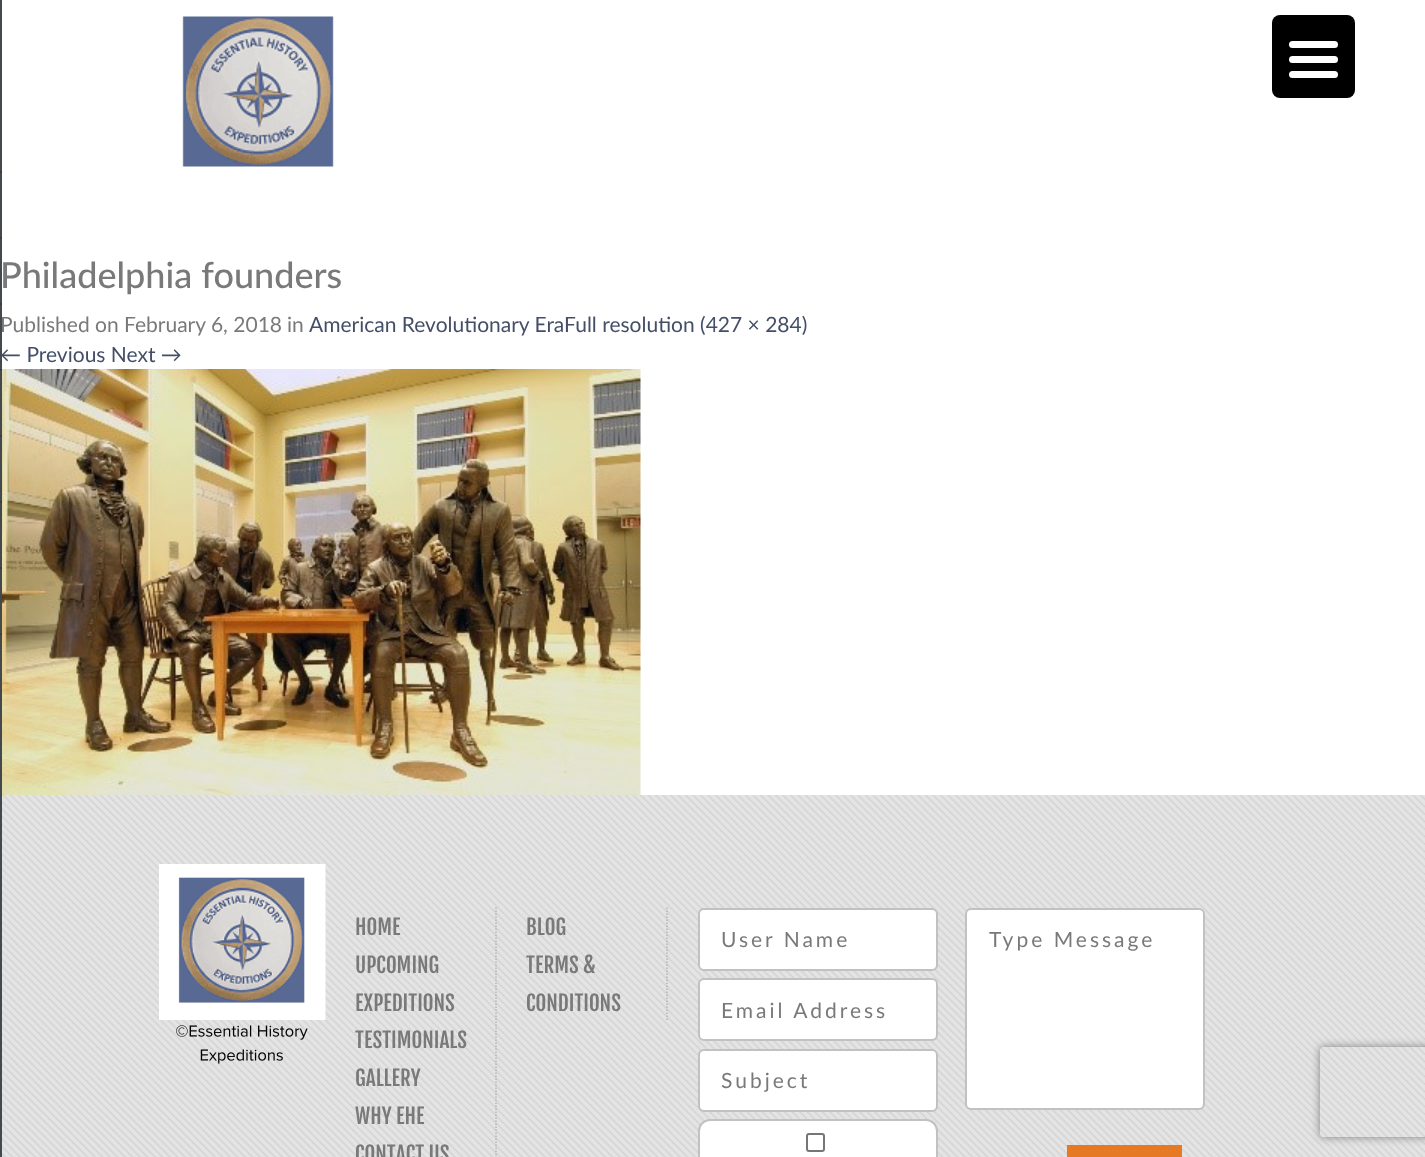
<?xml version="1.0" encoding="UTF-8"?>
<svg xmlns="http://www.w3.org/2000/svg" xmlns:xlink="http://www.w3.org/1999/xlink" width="1425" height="1157">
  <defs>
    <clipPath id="clip1"><path d="M 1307 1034 h 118 v 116 h -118 z m 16 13 h 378 c 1.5 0 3 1.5 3 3 v 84 c 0 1.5 -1.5 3 -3 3 h -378 c -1.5 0 -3 -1.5 -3 -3 v -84 c 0 -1.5 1.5 -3 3 -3 z" clip-rule="evenodd" /></clipPath>
  </defs>
  <rect width="100%" height="100%" fill="#ffffff" />
  <image x="182" y="16" width="152" height="151" xlink:href="image1.png" />
  <rect x="1272" y="15" width="83" height="83" rx="8" fill="#000000" />
  <rect x="1289" y="56" width="49" height="7" rx="3.5" fill="#ffffff" />
  <rect x="1289" y="41" width="49" height="7" rx="3.5" fill="#ffffff" />
  <rect x="1289" y="71" width="49" height="7" rx="3.5" fill="#ffffff" />
  <image x="2" y="369" width="639" height="426" xlink:href="image2.png" />
  <image x="2" y="795" width="1423" height="362" xlink:href="image3.png" />
  <image x="159" y="864" width="167" height="156" xlink:href="image4.png" />
  <image x="176" y="1025" width="132" height="15" xlink:href="image5.png" />
  <image x="200" y="1049" width="83" height="15" xlink:href="image6.png" />
  <path d="M 496 907.5 v 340.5" fill="none" stroke="#b5b5b5" stroke-width="1.5" stroke-dasharray="1.5 1.5" />
  <path d="M 667 907.5 v 114" fill="none" stroke="#b5b5b5" stroke-width="1.5" stroke-dasharray="1.5 1.5" />
  <rect x="699" y="909" width="238" height="61" rx="5" fill="#ffffff" stroke="#c1c1c1" stroke-width="2" />
  <rect x="699" y="979" width="238" height="61" rx="5" fill="#ffffff" stroke="#c1c1c1" stroke-width="2" />
  <rect x="699" y="1050" width="238" height="61" rx="5" fill="#ffffff" stroke="#c1c1c1" stroke-width="2" />
  <rect x="699" y="1120" width="238" height="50" rx="11" fill="#ffffff" stroke="#c1c1c1" stroke-width="2" />
  <rect x="807" y="1134" width="17" height="17" rx="2" fill="none" stroke="#767676" stroke-width="2" />
  <rect x="966" y="909" width="238" height="200" rx="5" fill="#ffffff" stroke="#c1c1c1" stroke-width="2" />
  <rect x="1067" y="1145" width="115" height="12" fill="#e57924" />
  <g clip-path="url(#clip1)">
    <rect x="1320" y="1047" width="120" height="90" rx="3" fill="#808080" filter="blur(4px)" />
  </g>
  <text x="0" y="288" style="font-family: Lato; font-size: 36px; font-weight: 500; fill: #797979">Philadelphia founders</text>
  <text x="0" y="332" style="font-family: Lato; font-size: 21px; fill: #797979">Published on February 6, 2018</text>
  <text x="287" y="332" style="font-family: Lato; font-size: 21px; fill: #797979">in</text>
  <text x="309" y="332" style="font-family: Lato; font-size: 21px; fill: #444e67">American Revolutionary EraFull resolution (427 × 284)</text>
  <text x="0" y="362" style="font-family: Lato; font-size: 21px; fill: #444e67">← Previous Next →</text>
  <rect width="2" height="1157" fill="#43494c" />
  <rect y="633" width="2" height="2" fill="#3c3c3c" />
  <rect y="567" width="2" height="2" fill="#3c3c3c" />
  <rect y="501" width="2" height="2" fill="#3c3c3c" />
  <rect y="435" width="2" height="2" fill="#3c3c3c" />
  <rect y="369" width="2" height="2" fill="#3c3c3c" />
  <rect y="303" width="2" height="2" fill="#3c3c3c" />
  <rect y="237" width="2" height="2" fill="#3c3c3c" />
  <rect y="171" width="2" height="2" fill="#3c3c3c" />
  <text x="355" y="935" style="font-family: Fjalla One; font-size: 21px; fill: #797979">HOME</text>
  <text x="355" y="973" style="font-family: Fjalla One; font-size: 21px; fill: #797979">UPCOMING</text>
  <text x="355" y="1011" style="font-family: Fjalla One; font-size: 21px; fill: #797979">EXPEDITIONS</text>
  <text x="355" y="1048" style="font-family: Fjalla One; font-size: 21px; fill: #797979">TESTIMONIALS</text>
  <text x="355" y="1086" style="font-family: Fjalla One; font-size: 21px; fill: #797979">GALLERY</text>
  <text x="355" y="1124" style="font-family: Fjalla One; font-size: 21px; fill: #797979">WHY EHE</text>
  <text x="355" y="1162" style="font-family: Fjalla One; font-size: 21px; fill: #797979">CONTACT US</text>
  <text x="526" y="935" style="font-family: Fjalla One; font-size: 21px; fill: #797979">BLOG</text>
  <text x="526" y="973" style="font-family: Fjalla One; font-size: 21px; fill: #797979">TERMS &amp;</text>
  <text x="526" y="1011" style="font-family: Fjalla One; font-size: 21px; fill: #797979">CONDITIONS</text>
  <text x="721" y="947" style="font-family: Lato; font-size: 21px; letter-spacing: 3px; fill: #797979">User Name</text>
  <text x="721" y="1018" style="font-family: Lato; font-size: 21px; letter-spacing: 3px; fill: #797979">Email Address</text>
  <text x="721" y="1088" style="font-family: Lato; font-size: 21px; letter-spacing: 3px; fill: #797979">Subject</text>
  <text x="989" y="947" style="font-family: Lato; font-size: 21px; letter-spacing: 3px; fill: #797979">Type Message</text>
</svg>
